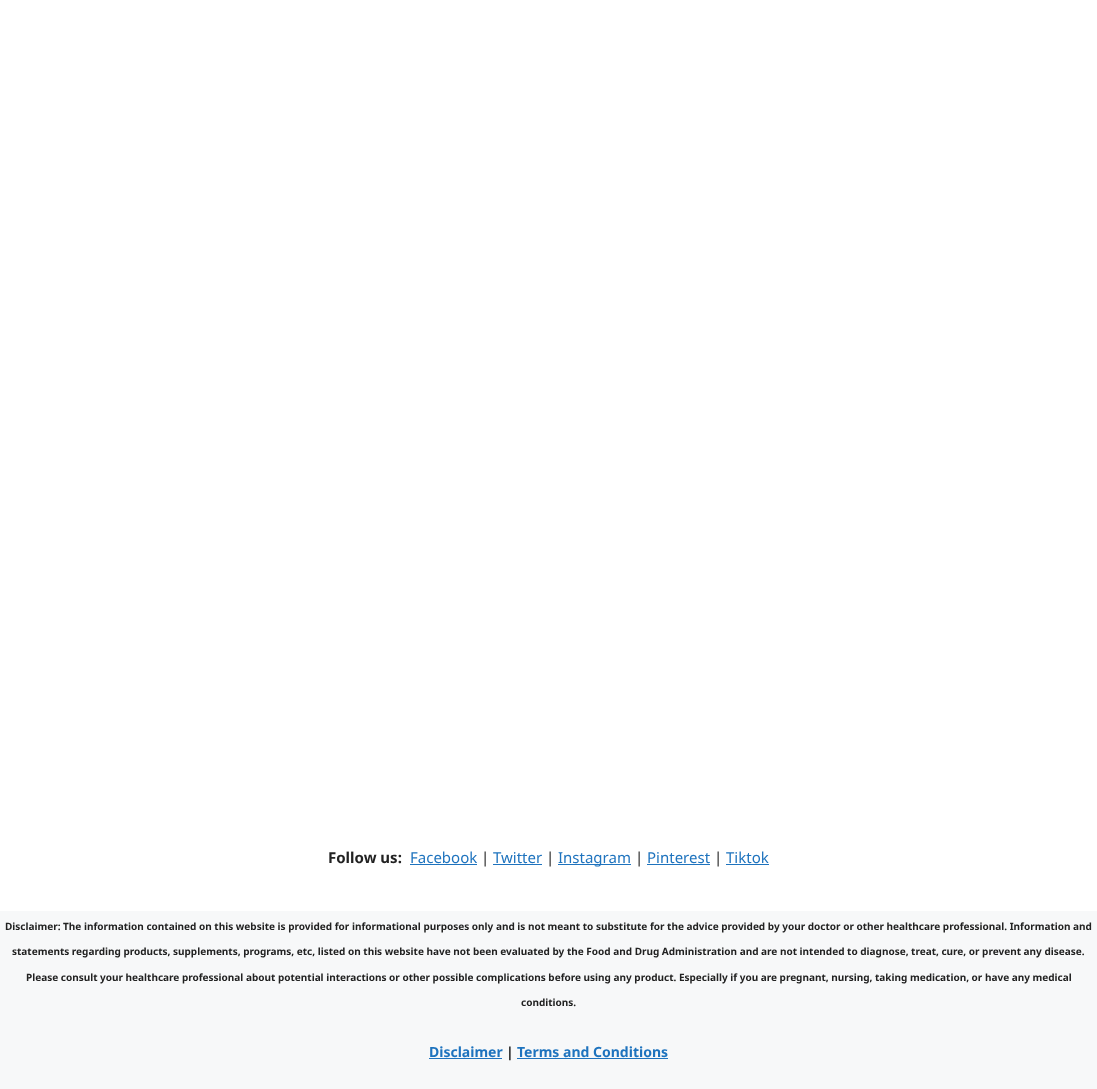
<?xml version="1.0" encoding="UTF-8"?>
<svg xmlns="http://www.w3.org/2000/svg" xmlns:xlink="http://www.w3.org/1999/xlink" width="1097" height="1089">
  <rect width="100%" height="100%" fill="#f7f8f9" />
  <rect width="1097" height="911" fill="#ffffff" />
  <rect x="410" y="864" width="67" height="1" fill="#1e73be" />
  <rect x="493" y="864" width="49" height="1" fill="#1e73be" />
  <rect x="558" y="864" width="73" height="1" fill="#1e73be" />
  <rect x="647" y="864" width="63" height="1" fill="#1e73be" />
  <rect x="726" y="864" width="43" height="1" fill="#1e73be" />
  <rect x="429" y="1058" width="73" height="1" fill="#1e73be" />
  <rect x="517" y="1058" width="151" height="1" fill="#1e73be" />
  <text x="328" y="863" style="font-family: Noto Sans; font-size: 15px; font-weight: bold; fill: #222222">Follow us:</text>
  <text x="410" y="863" style="font-family: Noto Sans; font-size: 15px; fill: #1e73be">Facebook</text>
  <text x="481" y="863" style="font-family: Noto Sans; font-size: 15px; fill: #222222">|</text>
  <text x="493" y="863" style="font-family: Noto Sans; font-size: 15px; fill: #1e73be">Twitter</text>
  <text x="546" y="863" style="font-family: Noto Sans; font-size: 15px; fill: #222222">|</text>
  <text x="558" y="863" style="font-family: Noto Sans; font-size: 15px; fill: #1e73be">Instagram</text>
  <text x="635" y="863" style="font-family: Noto Sans; font-size: 15px; fill: #222222">|</text>
  <text x="647" y="863" style="font-family: Noto Sans; font-size: 15px; fill: #1e73be">Pinterest</text>
  <text x="714" y="863" style="font-family: Noto Sans; font-size: 15px; fill: #222222">|</text>
  <text x="726" y="863" style="font-family: Noto Sans; font-size: 15px; fill: #1e73be">Tiktok</text>
  <text x="5" y="930" style="font-family: Noto Sans; font-size: 10px; font-weight: bold; fill: #222222">Disclaimer: The information contained on this website is provided for informational purposes only and is not meant to substitute for the advice provided by your doctor or other healthcare professional. Information and</text>
  <text x="12" y="955" style="font-family: Noto Sans; font-size: 10px; font-weight: bold; fill: #222222">statements regarding products, supplements, programs, etc, listed on this website have not been evaluated by the Food and Drug Administration and are not intended to diagnose, treat, cure, or prevent any disease.</text>
  <text x="26" y="981" style="font-family: Noto Sans; font-size: 10px; font-weight: bold; fill: #222222">Please consult your healthcare professional about potential interactions or other possible complications before using any product. Especially if you are pregnant, nursing, taking medication, or have any medical</text>
  <text x="521" y="1006" style="font-family: Noto Sans; font-size: 10px; font-weight: bold; fill: #222222">conditions.</text>
  <text x="429" y="1057" style="font-family: Noto Sans; font-size: 14px; font-weight: bold; fill: #1e73be">Disclaimer</text>
  <text x="506" y="1057" style="font-family: Noto Sans; font-size: 14px; font-weight: bold; fill: #222222">|</text>
  <text x="517" y="1057" style="font-family: Noto Sans; font-size: 14px; font-weight: bold; fill: #1e73be">Terms and Conditions</text>
</svg>
